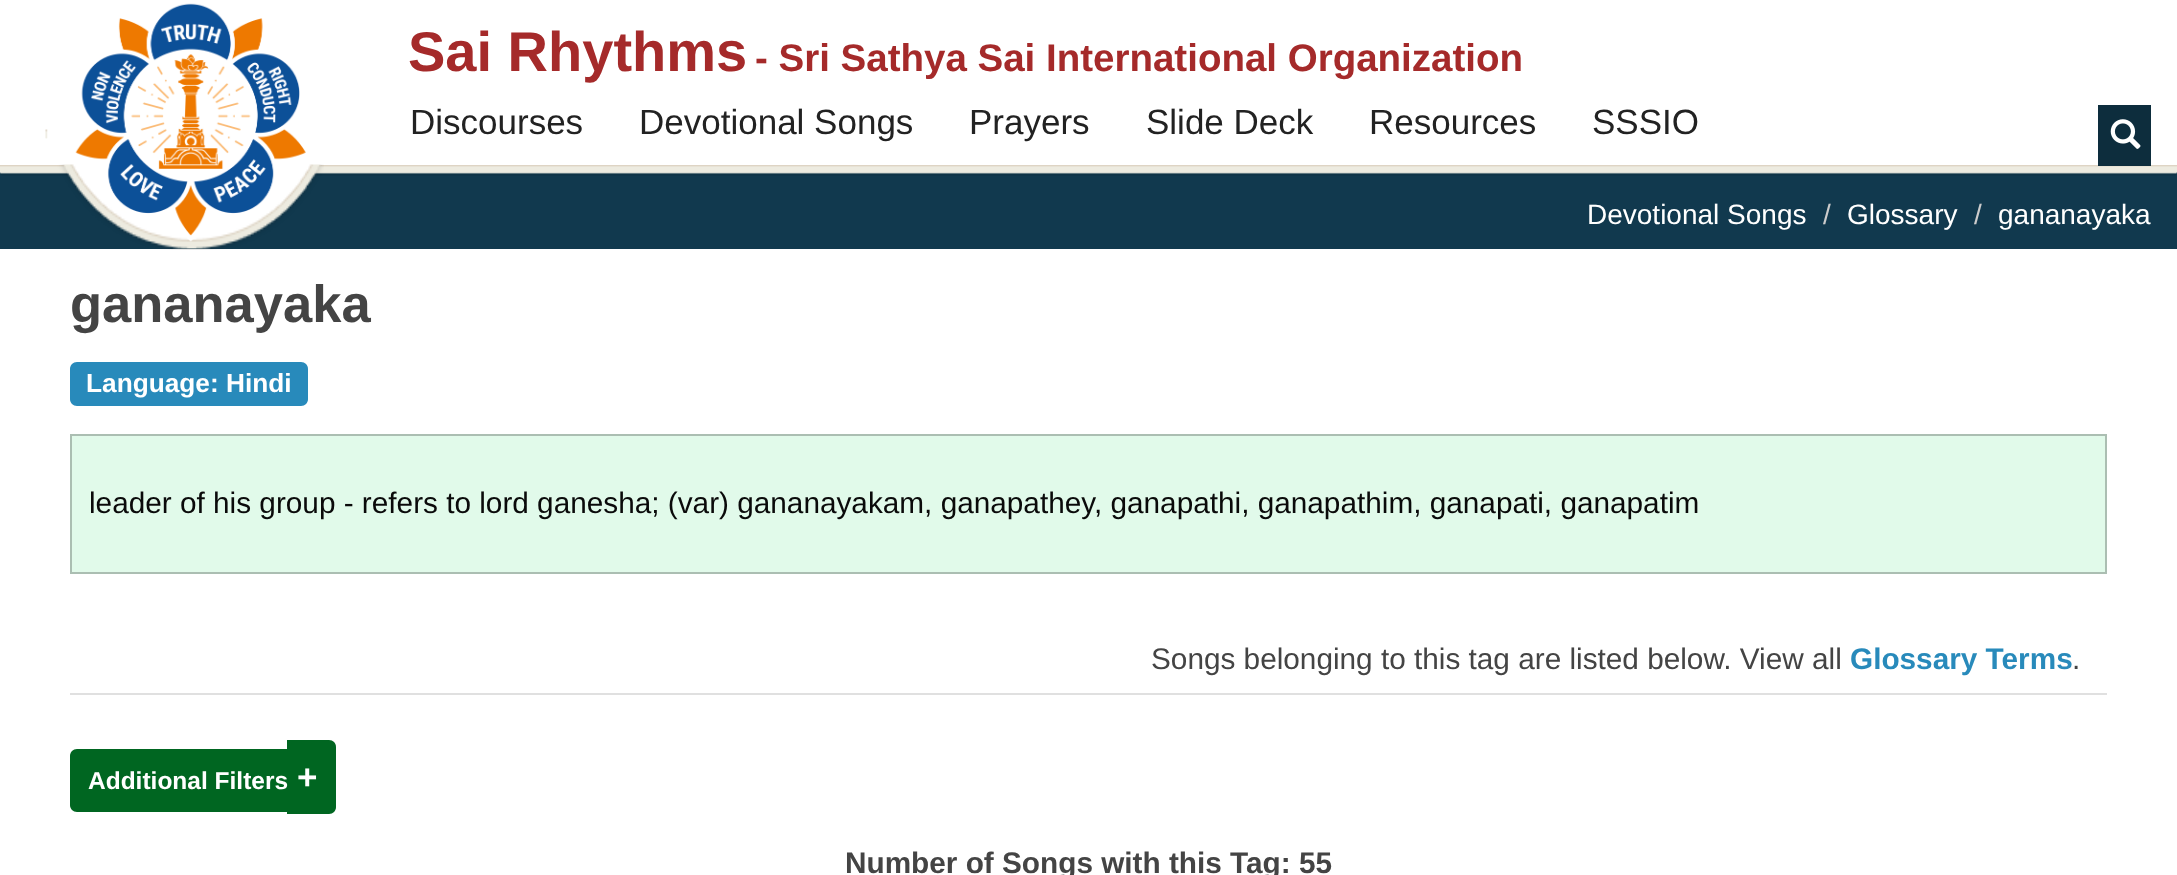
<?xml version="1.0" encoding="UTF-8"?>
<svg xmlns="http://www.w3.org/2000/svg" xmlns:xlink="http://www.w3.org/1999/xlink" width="2177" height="875">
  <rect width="100%" height="100%" fill="#ffffff" />
  <rect y="172" width="2177" height="77" fill="#11394e" />
  <image x="0" y="165" width="2177" height="11" xlink:href="image1.png" />
  <image x="45" y="129" width="279" height="121" xlink:href="image3.png" />
  <image x="75" y="3" width="231" height="239" xlink:href="image2.png" />
  <rect x="2098" y="105" width="53" height="61" fill="#0d2d3d" />
  <image x="2110" y="119" width="31" height="30" xlink:href="image4.png" />
  <path d="M 77 362 h 149 v 44 h -149 c -4 0 -7 -3 -7 -7 v -30 c 0 -4 3 -7 7 -7 z" fill="#288abb" />
  <path d="M 226 362 h 75 c 4 0 7 3 7 7 v 30 c 0 4 -3 7 -7 7 h -75 z" fill="#288abb" />
  <rect x="71" y="435" width="2035" height="138" fill="#e1faea" stroke="#abbeb2" stroke-width="2" />
  <rect x="70" y="693" width="2037" height="2" fill="#e0e0e0" />
  <path d="M 77 749 h 210 v 63 h -210 c -4 0 -7 -3 -7 -7 v -49 c 0 -4 3 -7 7 -7 z" fill="#006621" />
  <path d="M 287 740 h 42 c 4 0 7 3 7 7 v 60 c 0 4 -3 7 -7 7 h -42 z" fill="#006621" />
  <text x="408" y="71" style="font-family: Liberation Sans; font-size: 56px; font-weight: bold; fill: #a52a2a">Sai Rhythms</text>
  <text x="755" y="71" style="font-family: Liberation Sans; font-size: 38.5px; font-weight: bold; fill: #a52a2a">- Sri Sathya Sai International Organization</text>
  <text x="410" y="134" style="font-family: Liberation Sans; font-size: 35px; fill: #222222">Discourses</text>
  <text x="639" y="134" style="font-family: Liberation Sans; font-size: 35px; fill: #222222">Devotional Songs</text>
  <text x="969" y="134" style="font-family: Liberation Sans; font-size: 35px; fill: #222222">Prayers</text>
  <text x="1146" y="134" style="font-family: Liberation Sans; font-size: 35px; fill: #222222">Slide Deck</text>
  <text x="1369" y="134" style="font-family: Liberation Sans; font-size: 35px; fill: #222222">Resources</text>
  <text x="1592" y="134" style="font-family: Liberation Sans; font-size: 35px; fill: #222222">SSSIO</text>
  <text x="1587" y="224" style="font-family: Liberation Sans; font-size: 28px; fill: #ffffff">Devotional Songs</text>
  <text x="1823" y="224" style="font-family: Liberation Sans; font-size: 28px; fill: #cccccc">/</text>
  <text x="1847" y="224" style="font-family: Liberation Sans; font-size: 28px; fill: #ffffff">Glossary</text>
  <text x="1974" y="224" style="font-family: Liberation Sans; font-size: 28px; fill: #cccccc">/</text>
  <text x="1998" y="224" style="font-family: Liberation Sans; font-size: 28px; fill: #ffffff">gananayaka</text>
  <text x="70" y="322" style="font-family: Liberation Sans; font-size: 52.5px; font-weight: bold; fill: #444444">gananayaka</text>
  <text x="86" y="392" style="font-family: Liberation Sans; font-size: 26.25px; font-weight: bold; fill: #ffffff">Language: Hindi</text>
  <text x="89" y="513" style="font-family: Liberation Sans; font-size: 29.75px; fill: #0a0a0a">leader of his group - refers to lord ganesha; (var) gananayakam, ganapathey, ganapathi, ganapathim, ganapati, ganapatim</text>
  <text x="1151" y="669" style="font-family: Liberation Sans; font-size: 29.75px; fill: #444444">Songs belonging to this tag are listed below. View all</text>
  <text x="1850" y="669" style="font-family: Liberation Sans; font-size: 29.75px; font-weight: bold; fill: #288abb">Glossary Terms</text>
  <text x="2072" y="669" style="font-family: Liberation Sans; font-size: 29.75px; fill: #444444">.</text>
  <text x="88" y="789" style="font-family: Liberation Sans; font-size: 24.5px; font-weight: bold; fill: #ffffff">Additional Filters</text>
  <text x="297" y="789" style="font-family: Liberation Sans; font-size: 35px; font-weight: bold; fill: #ffffff">+</text>
  <text x="845" y="873" style="font-family: Liberation Sans; font-size: 29.75px; font-weight: bold; fill: #444444">Number of Songs with this Tag: 55</text>
</svg>
